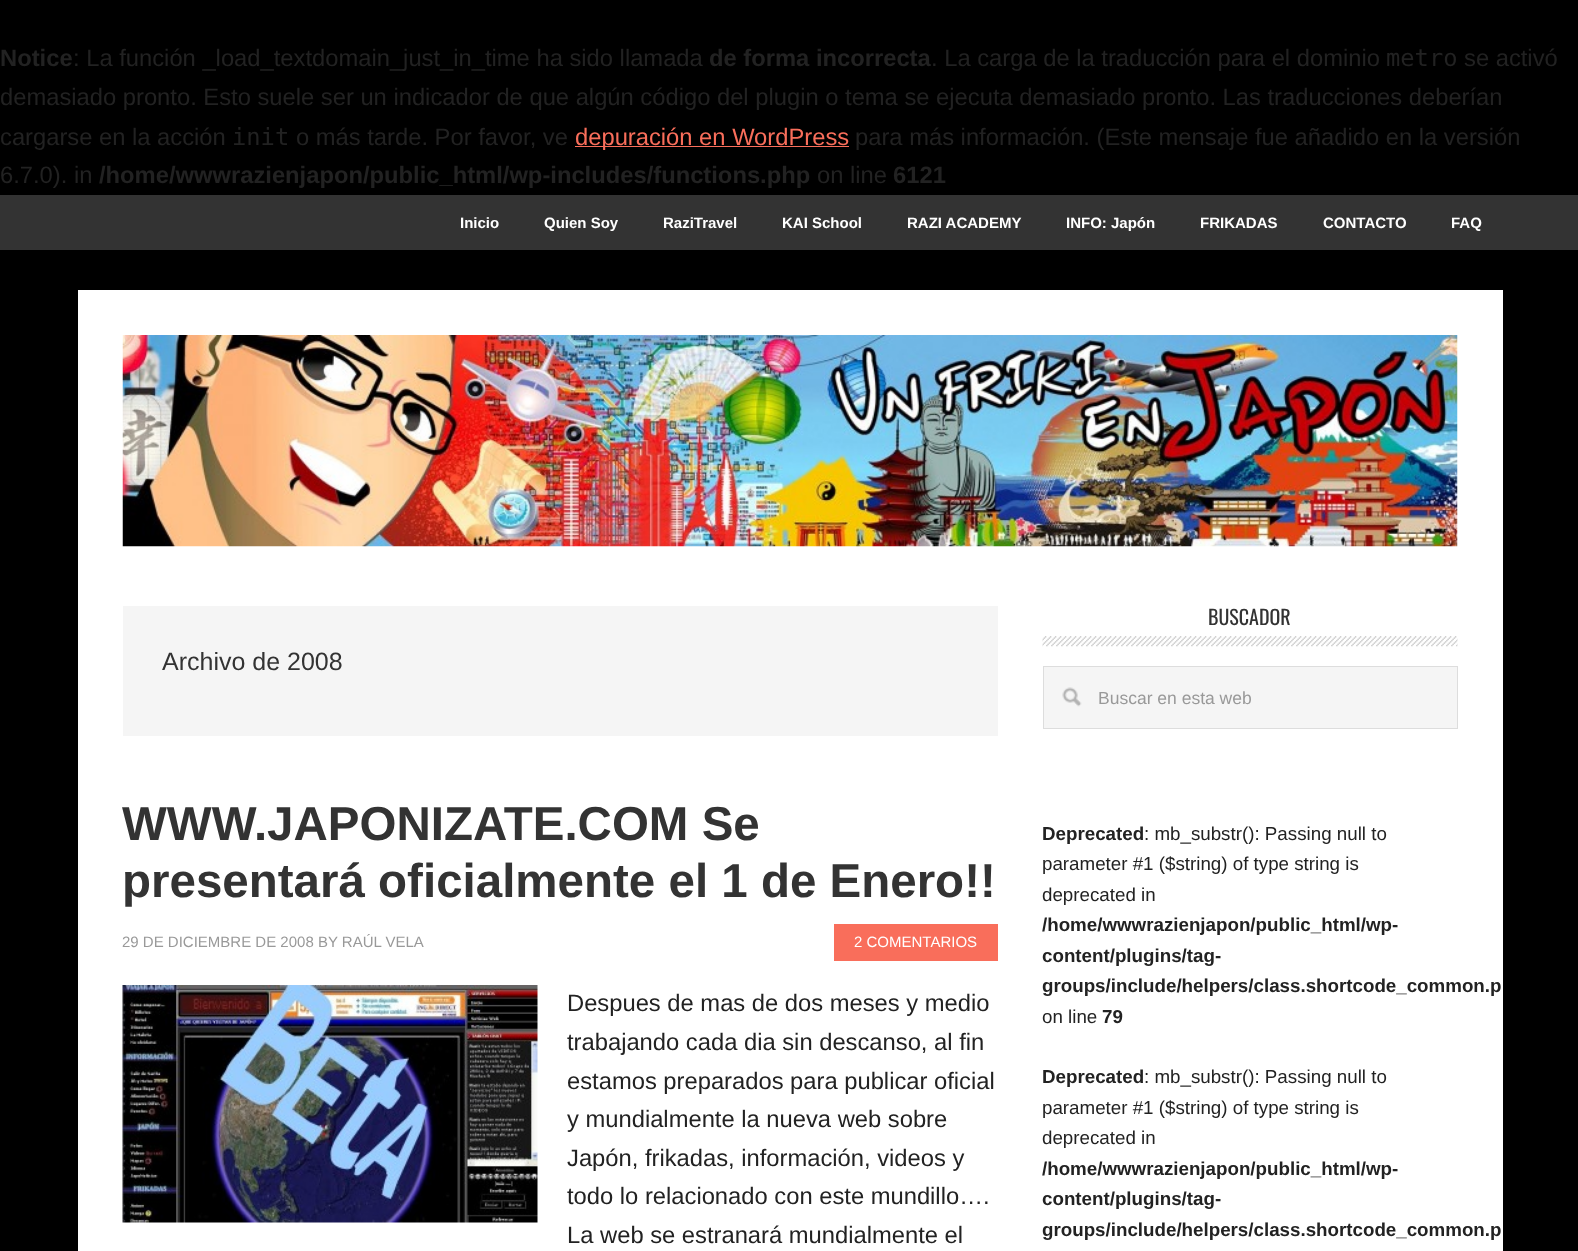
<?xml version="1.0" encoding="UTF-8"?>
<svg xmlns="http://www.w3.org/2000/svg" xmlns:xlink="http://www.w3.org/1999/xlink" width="1578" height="1251">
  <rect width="100%" height="100%" fill="#000000" />
  <rect x="575" y="146" width="274" height="1" fill="#f96e5b" />
  <rect y="195" width="1578" height="55" fill="#333333" />
  <rect x="78" y="290" width="1425" height="961" fill="#ffffff" />
  <image x="122" y="335" width="1336" height="212" xlink:href="image1.png" />
  <rect x="123" y="606" width="875" height="130" fill="#f5f5f5" />
  <rect x="834" y="924" width="164" height="37" fill="#f96e5b" />
  <image x="122" y="985" width="416" height="238" xlink:href="image2.png" />
  <image x="1042" y="636" width="416" height="11" xlink:href="image3.png" />
  <rect x="1044" y="667" width="413" height="61" fill="#f5f5f5" />
  <image x="1062" y="687" width="20" height="20" xlink:href="image4.png" />
  <rect x="1043.5" y="666.5" width="414" height="62" fill="none" stroke="#dddddd" />
  <text x="0" y="66" style="font-family: Liberation Sans; font-size: 23.75px; font-weight: bold; fill: #222222">Notice</text>
  <text x="73" y="66" style="font-family: Liberation Sans; font-size: 23.75px; fill: #222222">: La función _load_textdomain_just_in_time ha sido llamada</text>
  <text x="709" y="66" style="font-family: Liberation Sans; font-size: 23.75px; font-weight: bold; fill: #222222">de forma incorrecta</text>
  <text x="931" y="66" style="font-family: Liberation Sans; font-size: 23.75px; fill: #222222">. La carga de la traducción para el dominio</text>
  <text x="1386" y="66" style="font-family: DejaVu Sans Mono; font-size: 23.75px; fill: #222222">metro</text>
  <text x="1464" y="66" style="font-family: Liberation Sans; font-size: 23.75px; fill: #222222">se activó</text>
  <text x="0" y="105" style="font-family: Liberation Sans; font-size: 23.75px; fill: #222222">demasiado pronto. Esto suele ser un indicador de que algún código del plugin o tema se ejecuta demasiado pronto. Las traducciones deberían</text>
  <text x="0" y="145" style="font-family: Liberation Sans; font-size: 23.75px; fill: #222222">cargarse en la acción</text>
  <text x="232" y="145" style="font-family: DejaVu Sans Mono; font-size: 23.75px; fill: #222222">init</text>
  <text x="296" y="145" style="font-family: Liberation Sans; font-size: 23.75px; fill: #222222">o más tarde. Por favor, ve</text>
  <text x="575" y="145" style="font-family: Liberation Sans; font-size: 23.75px; fill: #f96e5b">depuración en WordPress</text>
  <text x="855" y="145" style="font-family: Liberation Sans; font-size: 23.75px; fill: #222222">para más información. (Este mensaje fue añadido en la versión</text>
  <text x="0" y="183" style="font-family: Liberation Sans; font-size: 23.75px; fill: #222222">6.7.0). in</text>
  <text x="99" y="183" style="font-family: Liberation Sans; font-size: 23.75px; font-weight: bold; fill: #222222">/home/wwwrazienjapon/public_html/wp-includes/functions.php</text>
  <text x="817" y="183" style="font-family: Liberation Sans; font-size: 23.75px; fill: #222222">on line</text>
  <text x="893" y="183" style="font-family: Liberation Sans; font-size: 23.75px; font-weight: bold; fill: #222222">6121</text>
  <text x="460" y="228" style="font-family: Liberation Sans; font-size: 15px; font-weight: bold; fill: #ffffff">Inicio</text>
  <text x="544" y="228" style="font-family: Liberation Sans; font-size: 15px; font-weight: bold; fill: #ffffff">Quien Soy</text>
  <text x="663" y="228" style="font-family: Liberation Sans; font-size: 15px; font-weight: bold; fill: #ffffff">RaziTravel</text>
  <text x="782" y="228" style="font-family: Liberation Sans; font-size: 15px; font-weight: bold; fill: #ffffff">KAI School</text>
  <text x="907" y="228" style="font-family: Liberation Sans; font-size: 15px; font-weight: bold; fill: #ffffff">RAZI ACADEMY</text>
  <text x="1066" y="228" style="font-family: Liberation Sans; font-size: 15px; font-weight: bold; fill: #ffffff">INFO: Japón</text>
  <text x="1200" y="228" style="font-family: Liberation Sans; font-size: 15px; font-weight: bold; fill: #ffffff">FRIKADAS</text>
  <text x="1323" y="228" style="font-family: Liberation Sans; font-size: 15px; font-weight: bold; fill: #ffffff">CONTACTO</text>
  <text x="1451" y="228" style="font-family: Liberation Sans; font-size: 15px; font-weight: bold; fill: #ffffff">FAQ</text>
  <text x="162" y="670" style="font-family: Liberation Sans; font-size: 25px; fill: #333333">Archivo de 2008</text>
  <text x="122" y="840" style="font-family: Liberation Sans; font-size: 47.5px; font-weight: bold; fill: #333333">WWW.JAPONIZATE.COM Se</text>
  <text x="122" y="897" style="font-family: Liberation Sans; font-size: 47.5px; font-weight: bold; fill: #333333">presentará oficialmente el 1 de Enero!!</text>
  <text x="122" y="947" style="font-family: Liberation Sans; font-size: 15px; fill: #999999">29 DE DICIEMBRE DE 2008 BY RAÚL VELA</text>
  <text x="854" y="947" style="font-family: Liberation Sans; font-size: 15px; fill: #ffffff">2 COMENTARIOS</text>
  <text x="567" y="1011" style="font-family: Liberation Sans; font-size: 23.75px; fill: #222222">Despues de mas de dos meses y medio</text>
  <text x="567" y="1050" style="font-family: Liberation Sans; font-size: 23.75px; fill: #222222">trabajando cada dia sin descanso, al fin</text>
  <text x="567" y="1089" style="font-family: Liberation Sans; font-size: 23.75px; fill: #222222">estamos preparados para publicar oficial</text>
  <text x="567" y="1127" style="font-family: Liberation Sans; font-size: 23.75px; fill: #222222">y mundialmente la nueva web sobre</text>
  <text x="567" y="1166" style="font-family: Liberation Sans; font-size: 23.75px; fill: #222222">Japón, frikadas, información, videos y</text>
  <text x="567" y="1204" style="font-family: Liberation Sans; font-size: 23.75px; fill: #222222">todo lo relacionado con este mundillo….</text>
  <text x="567" y="1243" style="font-family: Liberation Sans; font-size: 23.75px; fill: #222222">La web se estranará mundialmente el</text>
  <text x="1208" y="625" style="font-family: Oswald; font-size: 20px; fill: #333333">BUSCADOR</text>
  <text x="1098" y="704" style="font-family: Liberation Sans; font-size: 17.5px; fill: #999999">Buscar en esta web</text>
  <text x="1042" y="840" style="font-family: Liberation Sans; font-size: 18.75px; font-weight: bold; fill: #222222">Deprecated</text>
  <text x="1144" y="840" style="font-family: Liberation Sans; font-size: 18.75px; fill: #222222">: mb_substr(): Passing null to</text>
  <text x="1042" y="870" style="font-family: Liberation Sans; font-size: 18.75px; fill: #222222">parameter #1 ($string) of type string is</text>
  <text x="1042" y="901" style="font-family: Liberation Sans; font-size: 18.75px; fill: #222222">deprecated in</text>
  <text x="1042" y="931" style="font-family: Liberation Sans; font-size: 18.75px; font-weight: bold; fill: #222222">/home/wwwrazienjapon/public_html/wp-</text>
  <text x="1042" y="962" style="font-family: Liberation Sans; font-size: 18.75px; font-weight: bold; fill: #222222">content/plugins/tag-</text>
  <text x="1042" y="992" style="font-family: Liberation Sans; font-size: 18.75px; font-weight: bold; fill: #222222">groups/include/helpers/class.shortcode_common.p</text>
  <text x="1042" y="1023" style="font-family: Liberation Sans; font-size: 18.75px; fill: #222222">on line</text>
  <text x="1102" y="1023" style="font-family: Liberation Sans; font-size: 18.75px; font-weight: bold; fill: #222222">79</text>
  <text x="1042" y="1083" style="font-family: Liberation Sans; font-size: 18.75px; font-weight: bold; fill: #222222">Deprecated</text>
  <text x="1144" y="1083" style="font-family: Liberation Sans; font-size: 18.75px; fill: #222222">: mb_substr(): Passing null to</text>
  <text x="1042" y="1114" style="font-family: Liberation Sans; font-size: 18.75px; fill: #222222">parameter #1 ($string) of type string is</text>
  <text x="1042" y="1144" style="font-family: Liberation Sans; font-size: 18.75px; fill: #222222">deprecated in</text>
  <text x="1042" y="1175" style="font-family: Liberation Sans; font-size: 18.75px; font-weight: bold; fill: #222222">/home/wwwrazienjapon/public_html/wp-</text>
  <text x="1042" y="1205" style="font-family: Liberation Sans; font-size: 18.75px; font-weight: bold; fill: #222222">content/plugins/tag-</text>
  <text x="1042" y="1236" style="font-family: Liberation Sans; font-size: 18.75px; font-weight: bold; fill: #222222">groups/include/helpers/class.shortcode_common.p</text>
</svg>
